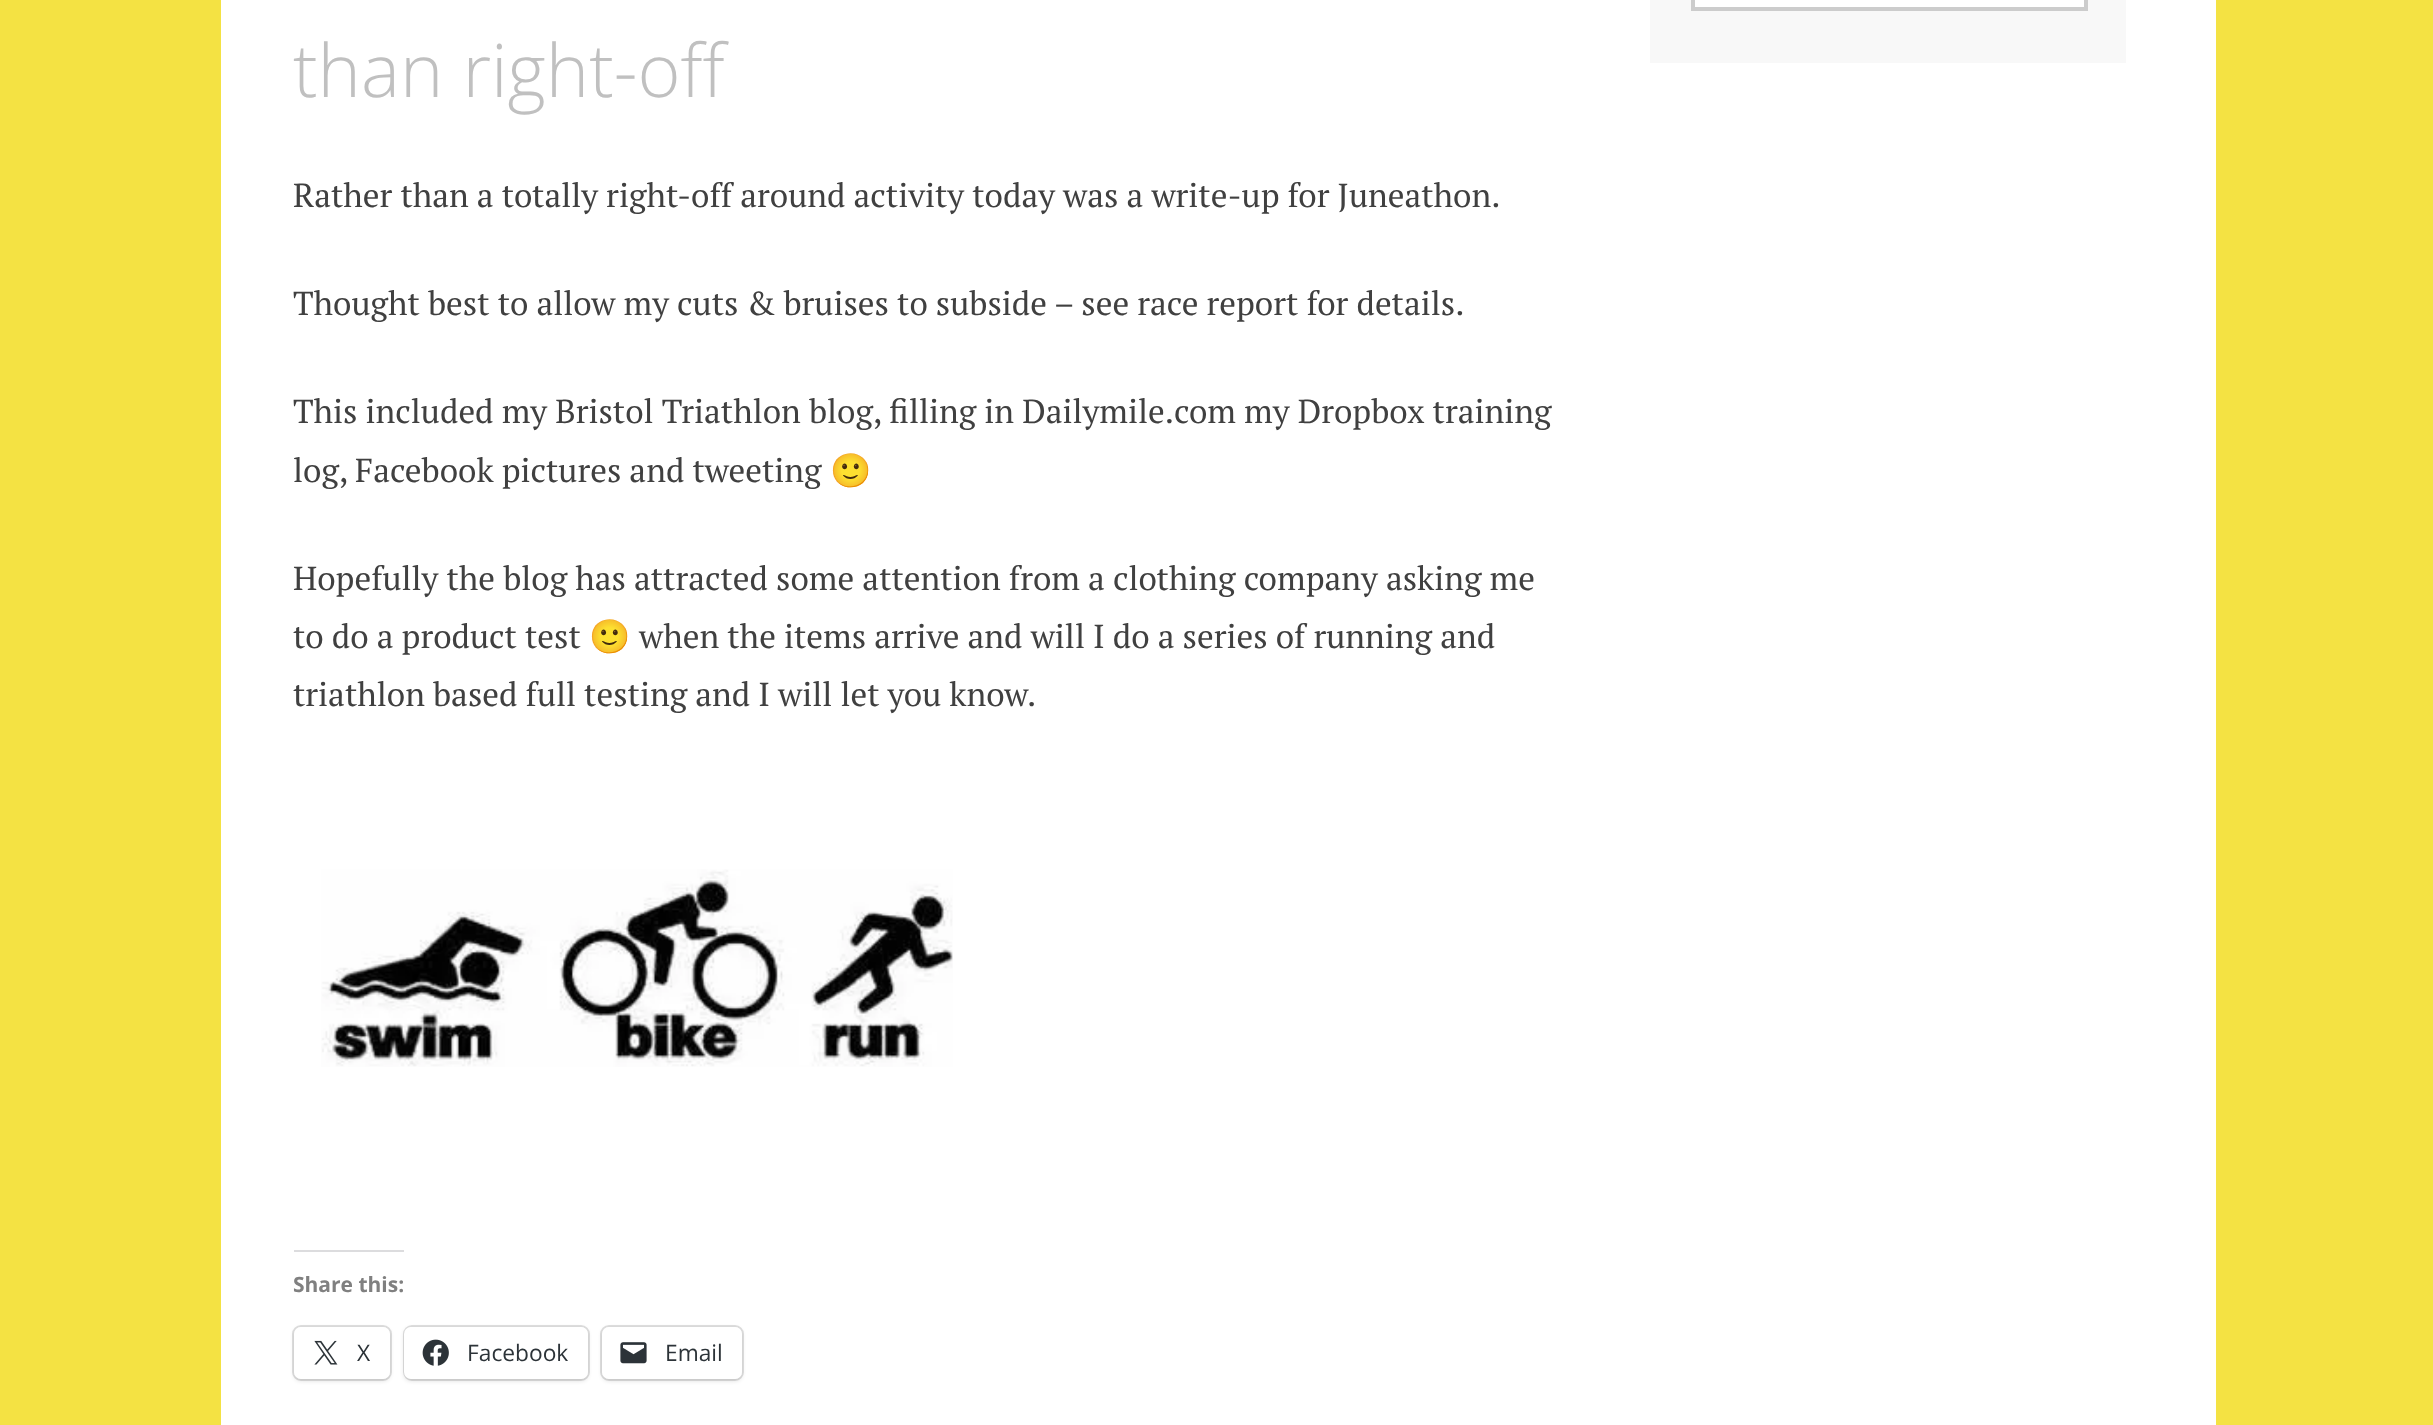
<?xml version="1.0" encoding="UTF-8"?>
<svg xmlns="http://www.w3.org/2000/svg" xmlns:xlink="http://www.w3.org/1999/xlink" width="2433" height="1425">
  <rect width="100%" height="100%" fill="#f4e243" />
  <rect x="221" width="1995" height="1425" fill="#ffffff" />
  <rect x="1650" width="476" height="63" fill="#f8f8f8" />
  <rect x="1693" y="-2" width="393" height="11" fill="#ffffff" stroke="#cccccc" stroke-width="4" />
  <image x="321" y="869" width="632" height="198" xlink:href="image1.png" />
  <rect x="294" y="1250" width="110" height="2" fill="#dcdcde" />
  <rect x="293" y="1326" width="98" height="54" rx="8" fill="none" stroke="#e0e0e0" stroke-width="2" />
  <rect x="294" y="1328" width="96" height="53" rx="7" fill="#000000" fill-opacity="0.12" filter="blur(2px)" />
  <rect x="294" y="1327" width="96" height="52" rx="7" fill="#ffffff" />
  <image x="314" y="1340" width="24" height="25" xlink:href="image2.png" />
  <rect x="404" y="1326" width="185" height="54" rx="8" fill="none" stroke="#e0e0e0" stroke-width="2" />
  <rect x="404" y="1328" width="184" height="53" rx="7" fill="#000000" fill-opacity="0.12" filter="blur(2px)" />
  <rect x="404" y="1327" width="184" height="52" rx="7" fill="#ffffff" />
  <image x="422" y="1339" width="27" height="27" xlink:href="image3.png" />
  <rect x="601" y="1326" width="142" height="54" rx="8" fill="none" stroke="#e0e0e0" stroke-width="2" />
  <rect x="602" y="1328" width="140" height="53" rx="7" fill="#000000" fill-opacity="0.12" filter="blur(2px)" />
  <rect x="602" y="1327" width="140" height="52" rx="7" fill="#ffffff" />
  <image x="620" y="1342" width="27" height="22" xlink:href="image4.png" />
  <text x="293" y="97" style="font-family: Open Sans; font-size: 73.5px; font-weight: 300; fill: #c0c0c0">than right-off</text>
  <text x="293" y="207" style="font-family: PT Serif; font-size: 33.25px; fill: #404040">Rather than a totally right-off around activity today was a write-up for Juneathon.</text>
  <text x="293" y="315" style="font-family: PT Serif; font-size: 33.25px; fill: #404040">Thought best to allow my cuts &amp; bruises to subside – see race report for details.</text>
  <text x="293" y="423" style="font-family: PT Serif; font-size: 33.25px; fill: #404040">This included my Bristol Triathlon blog, filling in Dailymile.com my Dropbox training</text>
  <text x="293" y="482" style="font-family: PT Serif; font-size: 33.25px; fill: #404040">log, Facebook pictures and tweeting</text>
  <text x="830" y="482" style="font-family: Noto Color Emoji; font-size: 33.25px; fill: #404040">🙂</text>
  <text x="293" y="590" style="font-family: PT Serif; font-size: 33.25px; fill: #404040">Hopefully the blog has attracted some attention from a clothing company asking me</text>
  <text x="293" y="648" style="font-family: PT Serif; font-size: 33.25px; fill: #404040">to do a product test</text>
  <text x="589" y="648" style="font-family: Noto Color Emoji; font-size: 33.25px; fill: #404040">🙂</text>
  <text x="639" y="648" style="font-family: PT Serif; font-size: 33.25px; fill: #404040">when the items arrive and will I do a series of running and</text>
  <text x="293" y="706" style="font-family: PT Serif; font-size: 33.25px; fill: #404040">triathlon based full testing and I will let you know.</text>
  <text x="293" y="1292" style="font-family: Open Sans; font-size: 21px; font-weight: bold; fill: #808080">Share this:</text>
  <text x="357" y="1361" style="font-family: Open Sans; font-size: 22.75px; fill: #2c3338">X</text>
  <text x="467" y="1361" style="font-family: Open Sans; font-size: 22.75px; fill: #2c3338">Facebook</text>
  <text x="665" y="1361" style="font-family: Open Sans; font-size: 22.75px; fill: #2c3338">Email</text>
</svg>
